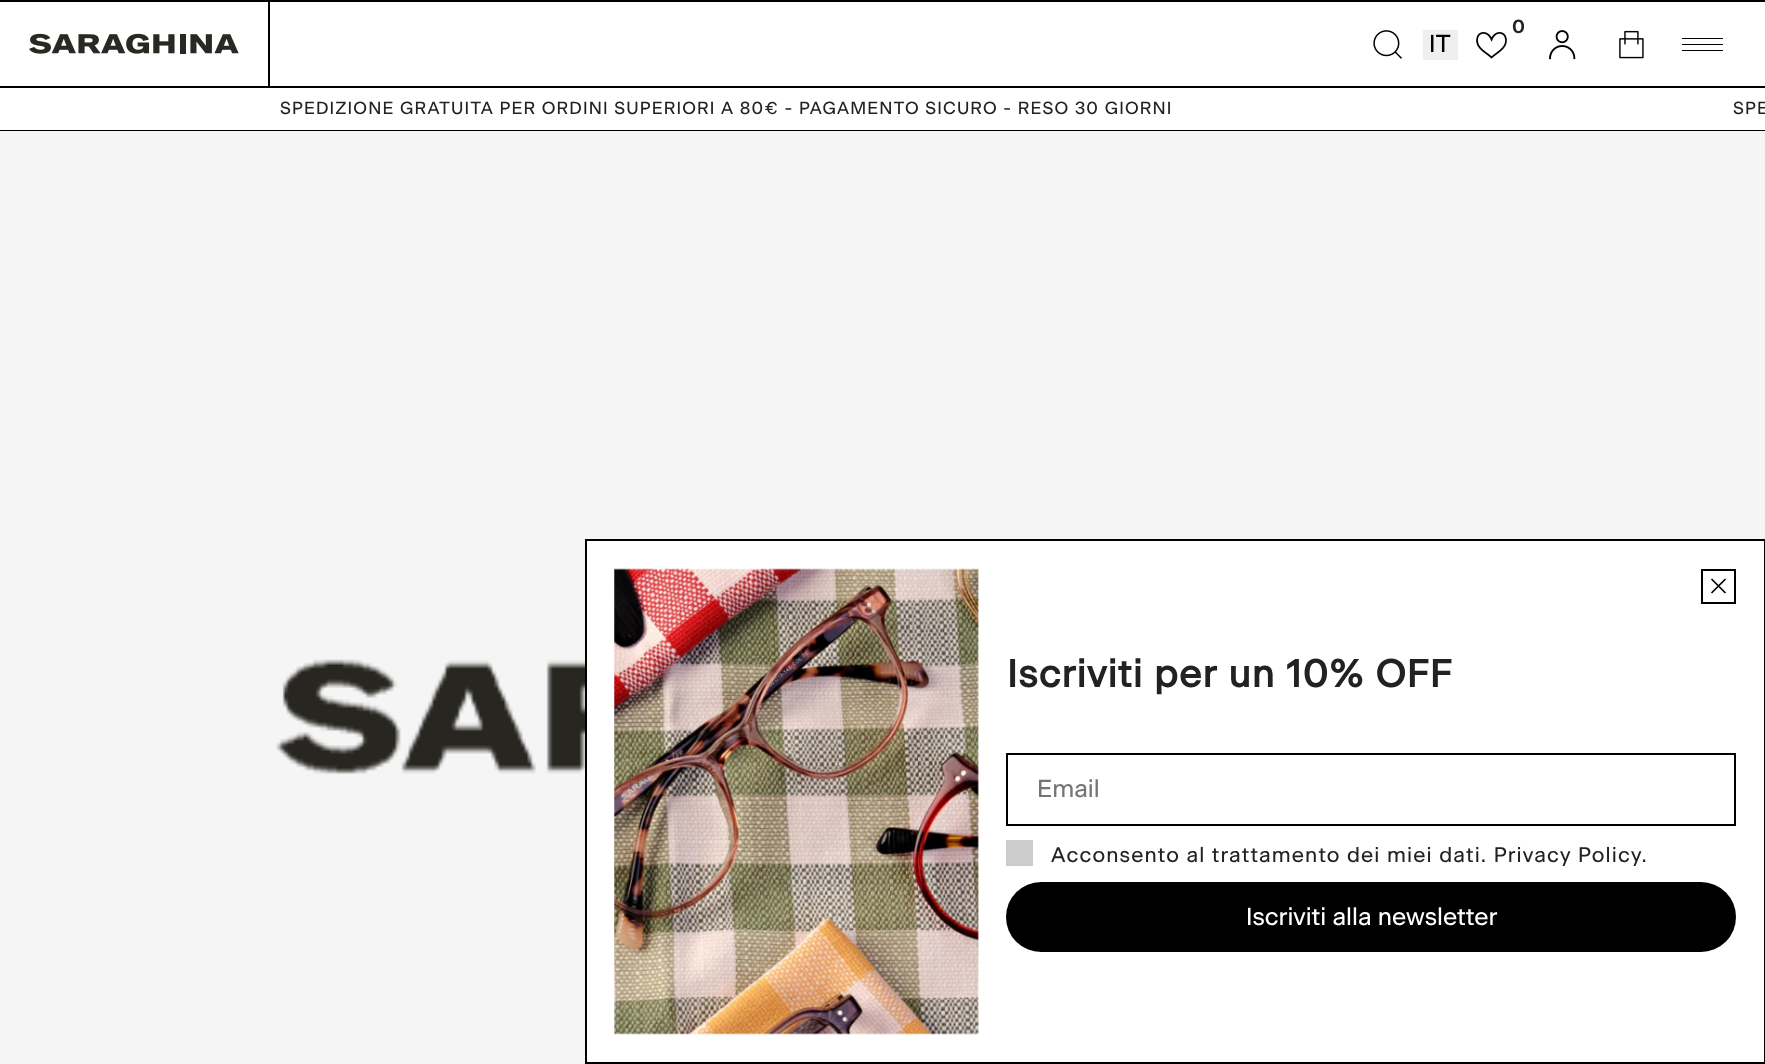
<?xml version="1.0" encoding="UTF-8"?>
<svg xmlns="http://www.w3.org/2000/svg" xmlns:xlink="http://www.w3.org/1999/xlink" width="1765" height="1064">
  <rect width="100%" height="100%" fill="#ffffff" />
  <rect width="1765" height="2" fill="#000000" />
  <rect y="86" width="1765" height="2" fill="#000000" />
  <rect x="268" y="2" width="2" height="84" fill="#000000" />
  <image x="29" y="33" width="210" height="21" xlink:href="image1.png" />
  <image x="1476" y="32" width="31" height="27" xlink:href="image2.png" />
  <image x="1373" y="30" width="29" height="29" xlink:href="image3.png" />
  <rect x="1423" y="30" width="35" height="30" fill="#efefef" />
  <image x="1549" y="30" width="27" height="30" xlink:href="image4.png" />
  <image x="1619" y="30" width="25" height="29" xlink:href="image5.png" />
  <rect x="1682" y="50" width="41" height="1" fill="#000000" />
  <rect x="1682" y="44" width="41" height="1" fill="#000000" />
  <rect x="1682" y="38" width="41" height="1" fill="#000000" />
  <rect y="130" width="1765" height="1" fill="#000000" />
  <rect y="131" width="1765" height="933" fill="#f5f5f5" />
  <image x="276" y="659" width="309" height="115" xlink:href="image6.png" />
  <rect x="586" y="540" width="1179" height="523" fill="#ffffff" stroke="#000000" stroke-width="2" />
  <image x="614" y="568" width="365" height="467" xlink:href="image7.png" />
  <rect x="1702" y="570" width="33" height="33" fill="none" stroke="#000000" stroke-width="2" />
  <path d="M 1711.5 593 l 14 -14 m -14 0 l 14 14" fill="none" stroke="#000000" stroke-width="1.7" />
  <rect x="1007" y="754" width="728" height="71" fill="none" stroke="#000000" stroke-width="2" />
  <rect x="1006" y="840" width="27" height="26" fill="#cccccc" />
  <rect x="1006" y="882" width="730" height="70" rx="35" fill="#000000" />
  <text x="1512" y="33" style="font-family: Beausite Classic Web; font-size: 19px; font-weight: 600; letter-spacing: 1.12px; fill: #222221">0</text>
  <text x="1429" y="52" style="font-family: Beausite Classic Web; font-size: 24.5px; fill: #000000">IT</text>
  <text x="280" y="114" style="font-family: Beausite Classic Web; font-size: 17.5px; letter-spacing: 1.12px; fill: #222221">SPEDIZIONE GRATUITA PER ORDINI SUPERIORI A 80€ - PAGAMENTO SICURO - RESO 30 GIORNI</text>
  <text x="1733" y="114" style="font-family: Beausite Classic Web; font-size: 17.5px; letter-spacing: 1.12px; fill: #222221">SPE</text>
  <text x="1007" y="687" style="font-family: Beausite Classic Web; font-size: 38.5px; font-weight: bold; letter-spacing: 1.12px; fill: #222221">Iscriviti per un 10% OFF</text>
  <text x="1037" y="797" style="font-family: Beausite Classic Web; font-size: 24.5px; fill: #757575">Email</text>
  <text x="1051" y="862" style="font-family: Beausite Classic Web; font-size: 21px; letter-spacing: 1.12px; fill: #222221">Acconsento al trattamento dei miei dati. Privacy Policy.</text>
  <text x="1246" y="925" style="font-family: Beausite Classic Web; font-size: 24.5px; fill: #ffffff">Iscriviti alla newsletter</text>
</svg>
